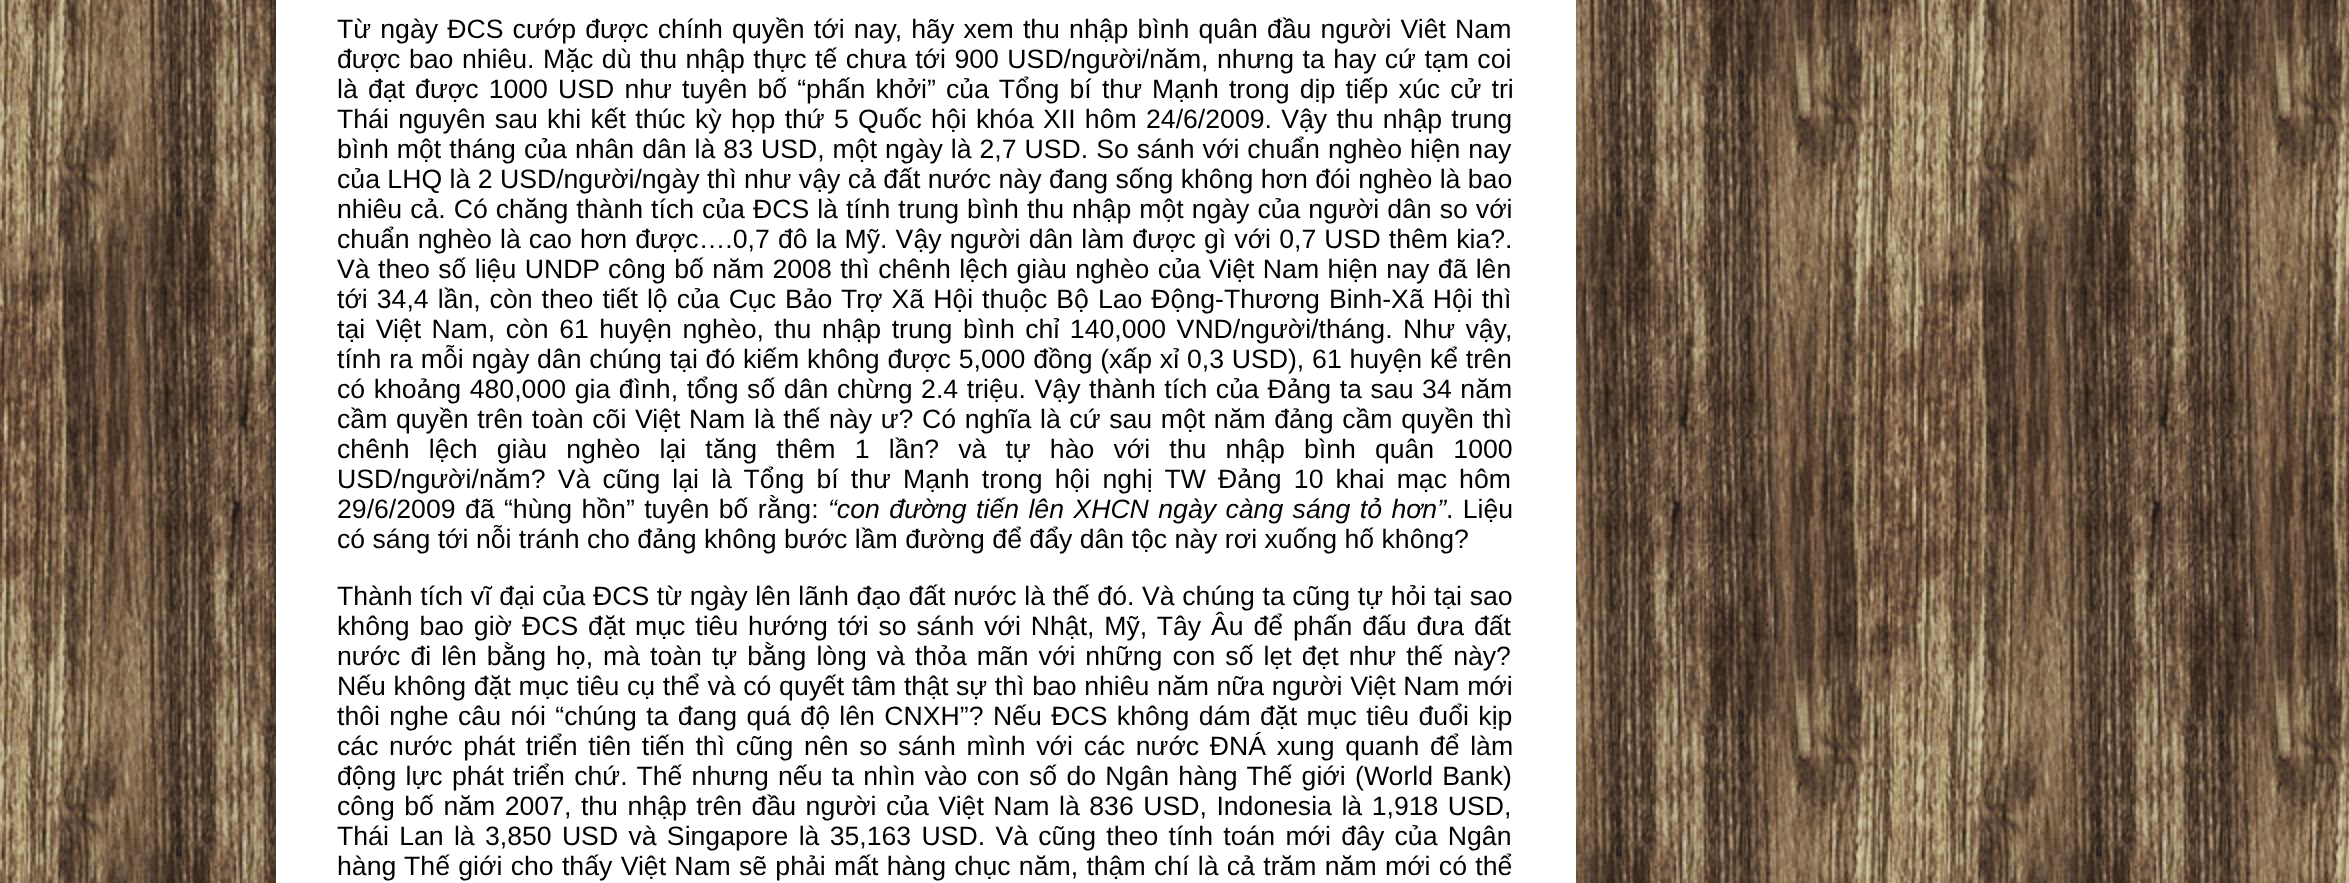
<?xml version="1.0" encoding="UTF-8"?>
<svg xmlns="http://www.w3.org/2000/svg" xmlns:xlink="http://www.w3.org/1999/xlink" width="2349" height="883">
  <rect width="100%" height="100%" fill="#ffffff" />
  <image x="0" y="0" width="2349" height="883" xlink:href="image1.png" />
  <rect x="276" width="1300" height="883" fill="#ffffff" />
  <text x="337" y="38" word-spacing="1.75" style="font-family: Liberation Sans; font-size: 26.65px; fill: #000000">Từ ngày ĐCS cướp được chính quyền tới nay, hãy xem thu nhập bình quân đầu người Viêt Nam</text>
  <text x="337" y="68" word-spacing="1.1" style="font-family: Liberation Sans; font-size: 26.65px; fill: #000000">được bao nhiêu. Mặc dù thu nhập thực tế chưa tới 900 USD/người/năm, nhưng ta hay cứ tạm coi</text>
  <text x="337" y="98" word-spacing="2.75" style="font-family: Liberation Sans; font-size: 26.65px; fill: #000000">là đạt được 1000 USD như tuyên bố “phấn khởi” của Tổng bí thư Mạnh trong dịp tiếp xúc cử tri</text>
  <text x="337" y="128" word-spacing="1.9" style="font-family: Liberation Sans; font-size: 26.65px; fill: #000000">Thái nguyên sau khi kết thúc kỳ họp thứ 5 Quốc hội khóa XII hôm 24/6/2009. Vậy thu nhập trung</text>
  <text x="337" y="158" word-spacing="0.6" style="font-family: Liberation Sans; font-size: 26.65px; fill: #000000">bình một tháng của nhân dân là 83 USD, một ngày là 2,7 USD. So sánh với chuẩn nghèo hiện nay</text>
  <text x="337" y="188" style="font-family: Liberation Sans; font-size: 26.65px; fill: #000000">của LHQ là 2 USD/người/ngày thì như vậy cả đất nước này đang sống không hơn đói nghèo là bao</text>
  <text x="337" y="218" word-spacing="0.6" style="font-family: Liberation Sans; font-size: 26.65px; fill: #000000">nhiêu cả. Có chăng thành tích của ĐCS là tính trung bình thu nhập một ngày của người dân so với</text>
  <text x="337" y="248" word-spacing="0.75" style="font-family: Liberation Sans; font-size: 26.65px; fill: #000000">chuẩn nghèo là cao hơn được….0,7 đô la Mỹ. Vậy người dân làm được gì với 0,7 USD thêm kia?.</text>
  <text x="337" y="278" word-spacing="1" style="font-family: Liberation Sans; font-size: 26.65px; fill: #000000">Và theo số liệu UNDP công bố năm 2008 thì chênh lệch giàu nghèo của Việt Nam hiện nay đã lên</text>
  <text x="337" y="308" word-spacing="1.6" style="font-family: Liberation Sans; font-size: 26.65px; fill: #000000">tới 34,4 lần, còn theo tiết lộ của Cục Bảo Trợ Xã Hội thuộc Bộ Lao Ðộng-Thương Binh-Xã Hội thì</text>
  <text x="337" y="338" word-spacing="3.1" style="font-family: Liberation Sans; font-size: 26.65px; fill: #000000">tại Việt Nam, còn 61 huyện nghèo, thu nhập trung bình chỉ 140,000 VND/người/tháng. Như vậy,</text>
  <text x="337" y="368" word-spacing="0.4" style="font-family: Liberation Sans; font-size: 26.65px; fill: #000000">tính ra mỗi ngày dân chúng tại đó kiếm không được 5,000 đồng (xấp xỉ 0,3 USD), 61 huyện kể trên</text>
  <text x="337" y="398" word-spacing="1.2" style="font-family: Liberation Sans; font-size: 26.65px; fill: #000000">có khoảng 480,000 gia đình, tổng số dân chừng 2.4 triệu. Vậy thành tích của Đảng ta sau 34 năm</text>
  <text x="337" y="428" word-spacing="1.25" style="font-family: Liberation Sans; font-size: 26.65px; fill: #000000">cầm quyền trên toàn cõi Việt Nam là thế này ư? Có nghĩa là cứ sau một năm đảng cầm quyền thì</text>
  <text x="337" y="458" word-spacing="11.75" style="font-family: Liberation Sans; font-size: 26.65px; fill: #000000">chênh lệch giàu nghèo lại tăng thêm 1 lần? và tự hào với thu nhập bình quân 1000</text>
  <text x="337" y="488" word-spacing="4.75" style="font-family: Liberation Sans; font-size: 26.65px; fill: #000000">USD/người/năm? Và cũng lại là Tổng bí thư Mạnh trong hội nghị TW Đảng 10 khai mạc hôm</text>
  <text x="337" y="518" word-spacing="2" style="font-family: Liberation Sans; font-size: 26.65px; fill: #000000">29/6/2009 đã “hùng hồn” tuyên bố rằng:</text>
  <text x="828" y="518" word-spacing="2" style="font-family: Liberation Sans; font-size: 26.65px; font-style: italic; fill: #000000">“con đường tiến lên XHCN ngày càng sáng tỏ hơn”</text>
  <text x="1446" y="518" word-spacing="2" style="font-family: Liberation Sans; font-size: 26.65px; fill: #000000">. Liệu</text>
  <text x="337" y="548" style="font-family: Liberation Sans; font-size: 26.65px; fill: #000000">có sáng tới nỗi tránh cho đảng không bước lầm đường để đẩy dân tộc này rơi xuống hố không?</text>
  <text x="337" y="605" word-spacing="0.25" style="font-family: Liberation Sans; font-size: 26.65px; fill: #000000">Thành tích vĩ đại của ĐCS từ ngày lên lãnh đạo đất nước là thế đó. Và chúng ta cũng tự hỏi tại sao</text>
  <text x="337" y="635" word-spacing="2.5" style="font-family: Liberation Sans; font-size: 26.65px; fill: #000000">không bao giờ ĐCS đặt mục tiêu hướng tới so sánh với Nhật, Mỹ, Tây Âu để phấn đấu đưa đất</text>
  <text x="337" y="665" word-spacing="2.6" style="font-family: Liberation Sans; font-size: 26.65px; fill: #000000">nước đi lên bằng họ, mà toàn tự bằng lòng và thỏa mãn với những con số lẹt đẹt như thế này?</text>
  <text x="337" y="695" word-spacing="0.25" style="font-family: Liberation Sans; font-size: 26.65px; fill: #000000">Nếu không đặt mục tiêu cụ thể và có quyết tâm thật sự thì bao nhiêu năm nữa người Việt Nam mới</text>
  <text x="337" y="725" word-spacing="2" style="font-family: Liberation Sans; font-size: 26.65px; fill: #000000">thôi nghe câu nói “chúng ta đang quá độ lên CNXH”? Nếu ĐCS không dám đặt mục tiêu đuổi kịp</text>
  <text x="337" y="755" word-spacing="3.25" style="font-family: Liberation Sans; font-size: 26.65px; fill: #000000">các nước phát triển tiên tiến thì cũng nên so sánh mình với các nước ĐNÁ xung quanh để làm</text>
  <text x="337" y="785" word-spacing="1.9" style="font-family: Liberation Sans; font-size: 26.65px; fill: #000000">động lực phát triển chứ. Thế nhưng nếu ta nhìn vào con số do Ngân hàng Thế giới (World Bank)</text>
  <text x="337" y="815" word-spacing="2.1" style="font-family: Liberation Sans; font-size: 26.65px; fill: #000000">công bố năm 2007, thu nhập trên đầu người của Việt Nam là 836 USD, Indonesia là 1,918 USD,</text>
  <text x="337" y="845" word-spacing="2.9" style="font-family: Liberation Sans; font-size: 26.65px; fill: #000000">Thái Lan là 3,850 USD và Singapore là 35,163 USD. Và cũng theo tính toán mới đây của Ngân</text>
  <text x="337" y="875" word-spacing="0.9" style="font-family: Liberation Sans; font-size: 26.65px; fill: #000000">hàng Thế giới cho thấy Việt Nam sẽ phải mất hàng chục năm, thậm chí là cả trăm năm mới có thể</text>
</svg>
